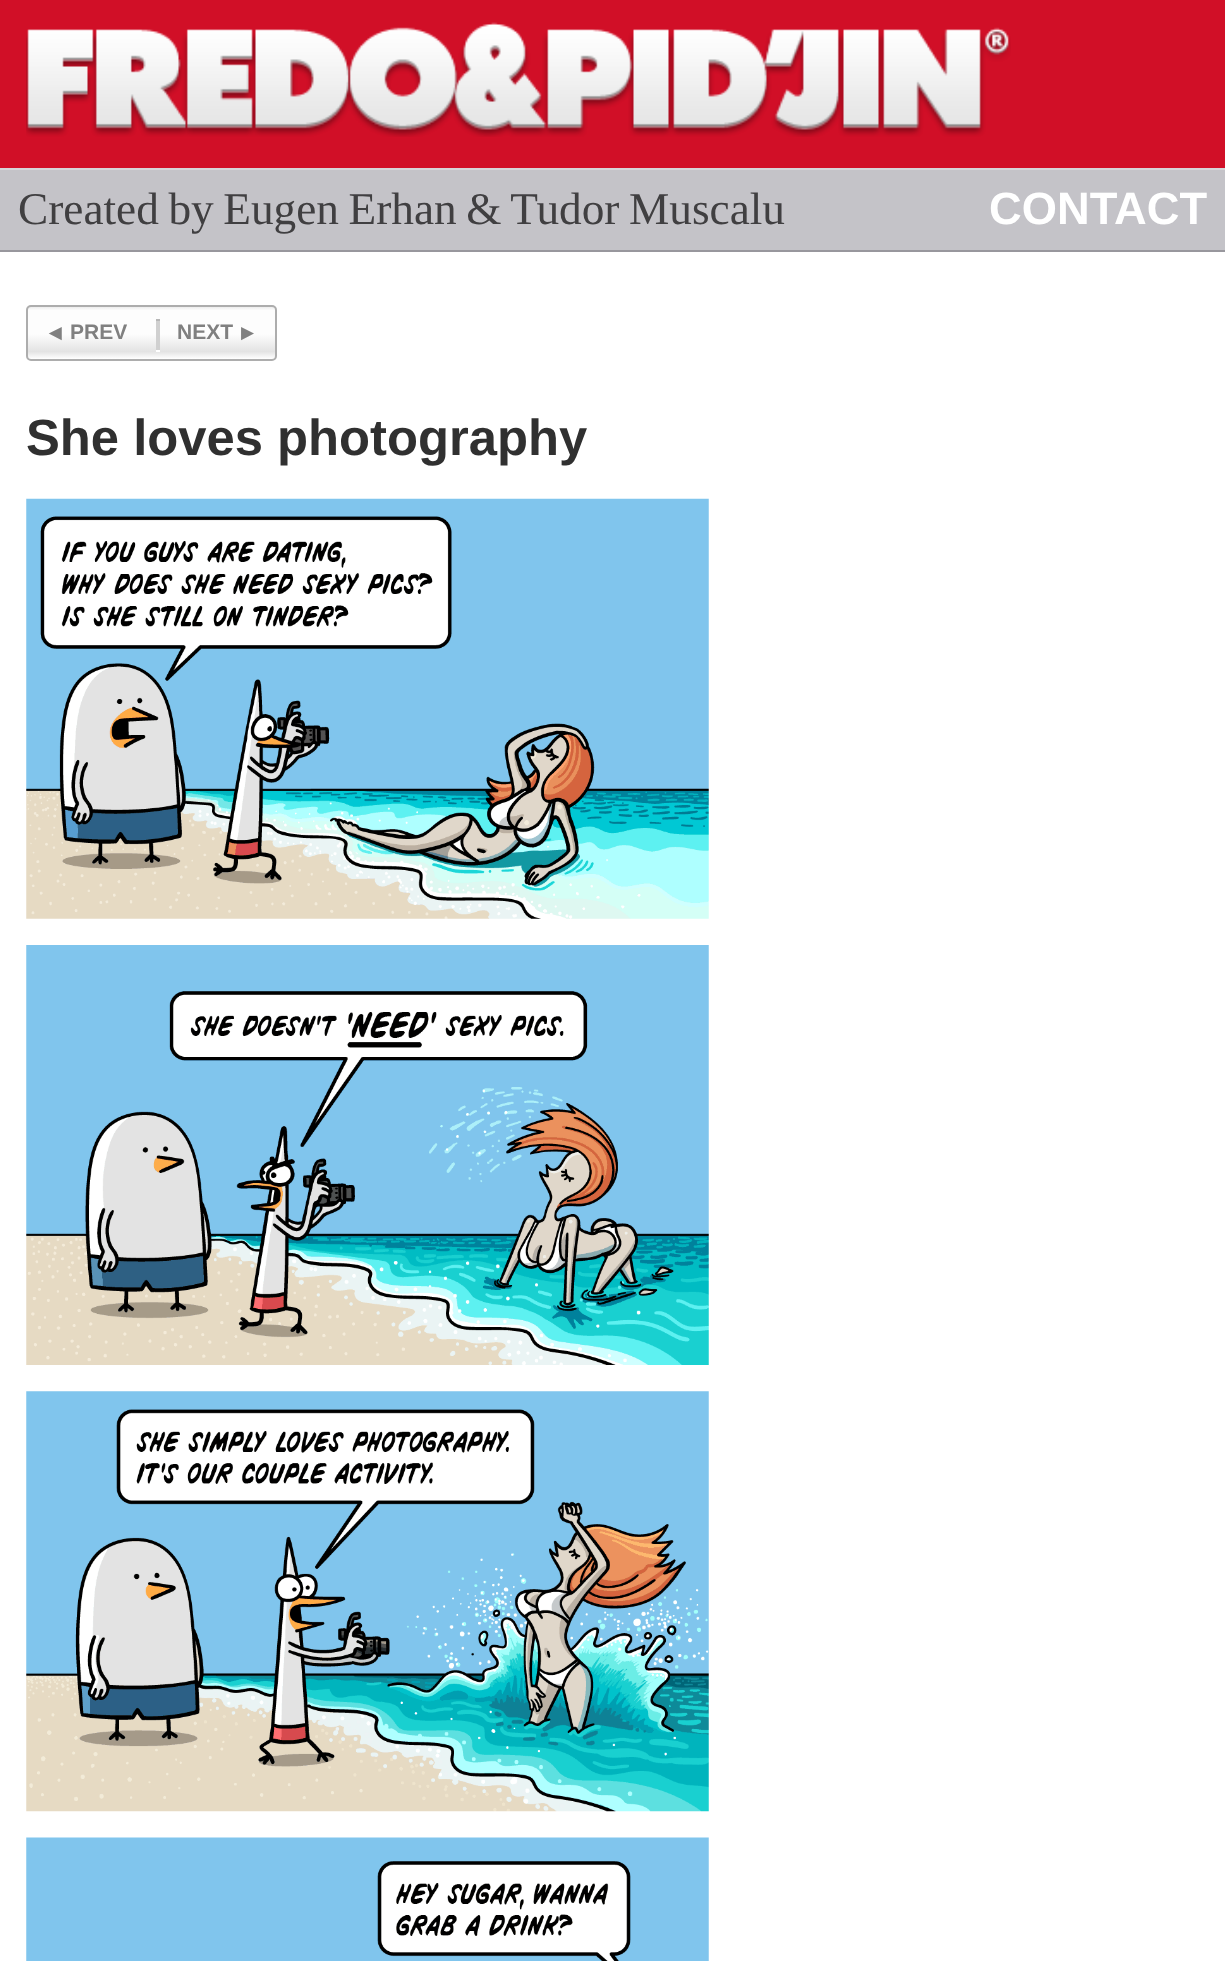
<?xml version="1.0" encoding="UTF-8"?>
<svg xmlns="http://www.w3.org/2000/svg" xmlns:xlink="http://www.w3.org/1999/xlink" width="1225" height="1961">
  <defs>
    <clipPath id="clip1"><rect x="26" y="305" width="251" height="56" rx="5" /></clipPath>
    <linearGradient id="g1" gradientUnits="userSpaceOnUse" x1="151" y1="306" x2="151" y2="359"><stop offset="0" stop-color="#e8e8e8" /><stop offset="0.08" stop-color="#fdfdfd" /><stop offset="0.53" stop-color="#fdfdfd" /><stop offset="0.86" stop-color="#e3e3e3" /><stop offset="1" stop-color="#ffffff" /></linearGradient>
  </defs>
  <rect width="100%" height="100%" fill="#ffffff" />
  <rect width="1225" height="168" fill="#d10f27" />
  <rect y="250" width="1225" height="2" fill="#98979d" />
  <image x="26" y="22" width="985" height="115" xlink:href="image1.png" />
  <rect y="170" width="1225" height="80" fill="#c4c3c8" />
  <rect y="168" width="1225" height="2" fill="#d6d5d9" />
  <g clip-path="url(#clip1)">
    <rect x="26" y="306" width="251" height="53" fill="url(#g1)" />
  </g>
  <rect x="27" y="306" width="249" height="54" rx="4" fill="none" stroke="#adadad" stroke-width="2" />
  <rect x="156" y="319" width="4" height="33" fill="#d0d0d0" />
  <rect x="156" y="319" width="4" height="2" fill="#b7b7b7" />
  <rect x="156" y="350" width="4" height="2" fill="#ffffff" />
  <image x="26" y="498" width="683" height="421" xlink:href="image2.png" />
  <image x="26" y="945" width="683" height="420" xlink:href="image3.png" />
  <image x="26" y="1391" width="683" height="421" xlink:href="image4.png" />
  <image x="26" y="1837" width="683" height="124" xlink:href="image5.png" />
  <text x="18" y="224" word-spacing="-1.75" style="font-family: Liberation Serif; font-size: 45.3px; fill: #403f41">Created by Eugen Erhan &amp; Tudor Muscalu</text>
  <text x="989" y="224" style="font-family: Liberation Sans; font-size: 45.3px; font-weight: bold; fill: #ffffff">CONTACT</text>
  <text x="49" y="338" style="font-family: DejaVu Sans; font-size: 16px; font-weight: bold; fill: #808080">◀</text>
  <text x="70" y="339" style="font-family: Liberation Sans; font-size: 21px; font-weight: bold; fill: #808080">PREV</text>
  <text x="177" y="339" style="font-family: Liberation Sans; font-size: 21px; font-weight: bold; fill: #808080">NEXT</text>
  <text x="241" y="338" style="font-family: DejaVu Sans; font-size: 16px; font-weight: bold; fill: #808080">▶</text>
  <text x="26" y="455" style="font-family: Liberation Sans; font-size: 50.75px; font-weight: bold; fill: #303030">She loves photography</text>
</svg>
